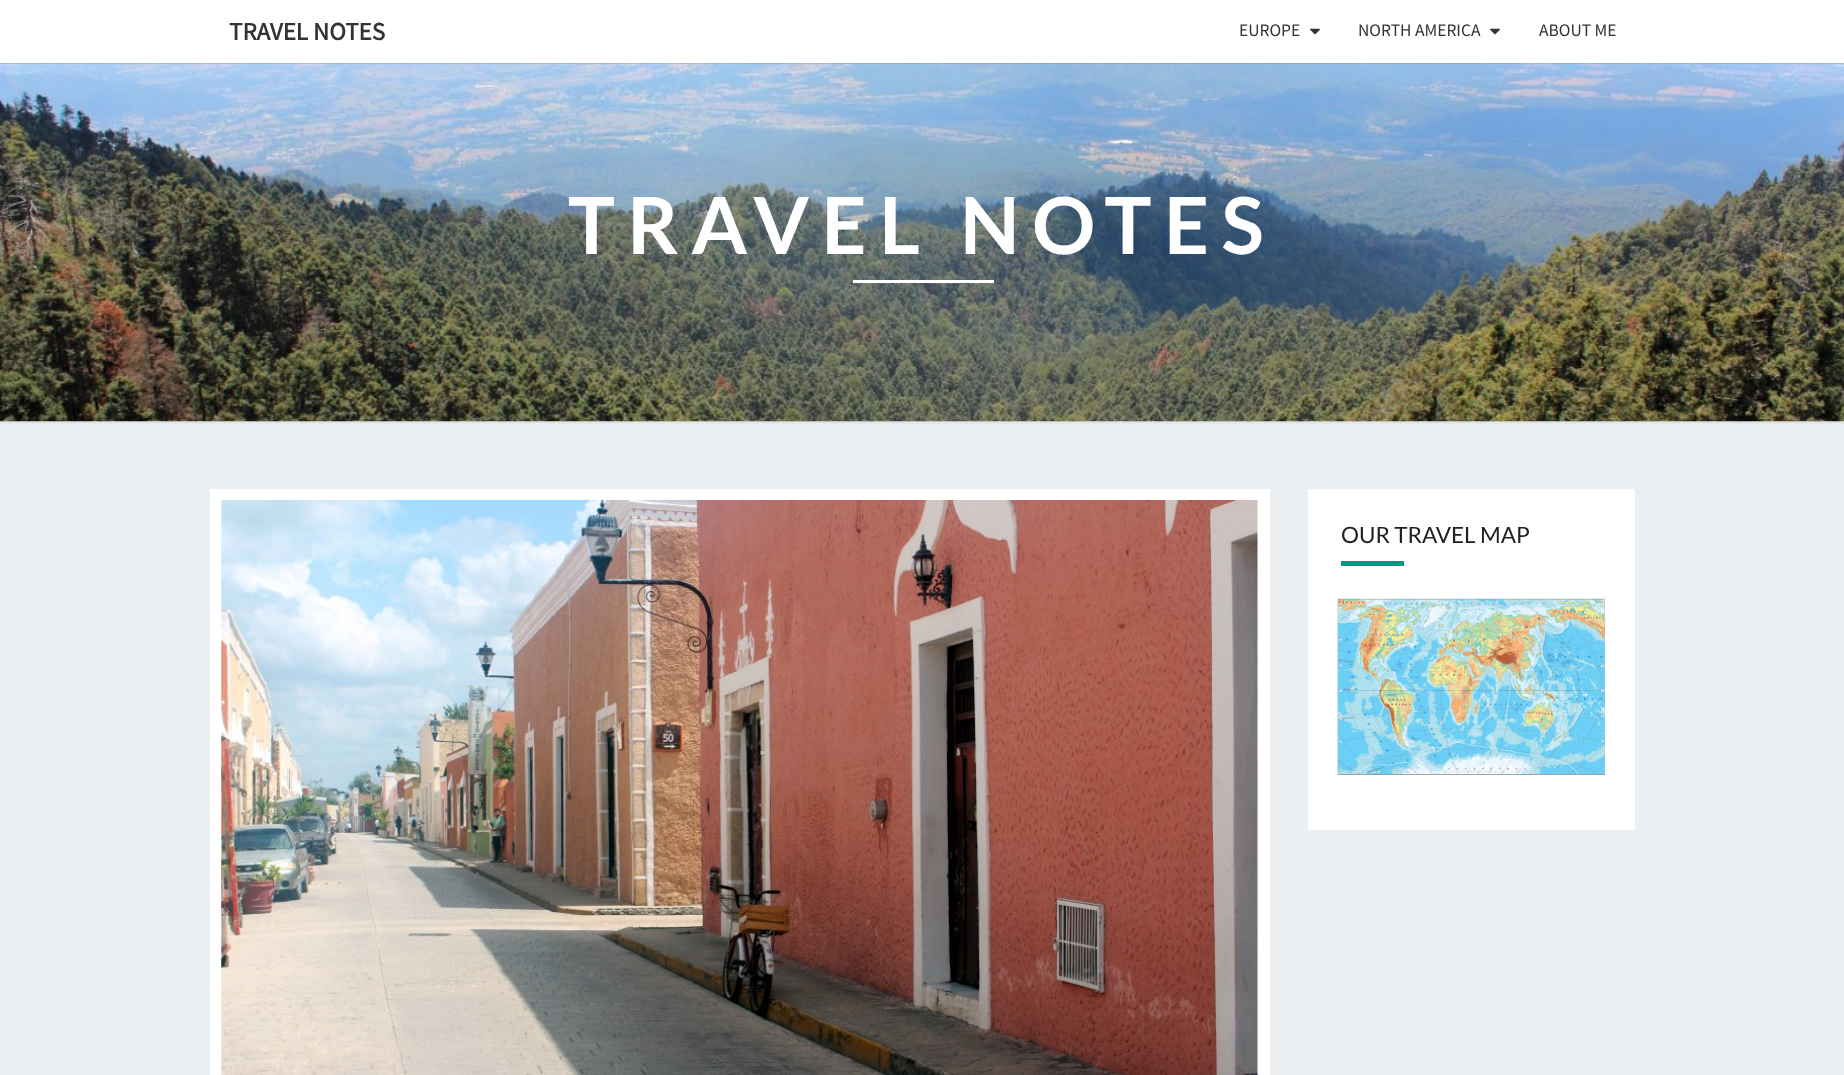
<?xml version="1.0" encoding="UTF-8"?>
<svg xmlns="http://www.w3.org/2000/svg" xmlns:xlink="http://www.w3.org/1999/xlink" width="1844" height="1075">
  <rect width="100%" height="100%" fill="#eceff1" />
  <rect x="-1" y="61" width="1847" height="362" fill="#b6b6b6" fill-opacity="0.3" filter="blur(1px)" />
  <image x="0" y="63" width="1844" height="359" xlink:href="image2.png" />
  <rect y="1" width="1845" height="63" fill="#646464" fill-opacity="0.2" filter="blur(0.5px)" />
  <rect width="1844" height="63" fill="#ffffff" />
  <image x="1310" y="28" width="10" height="7" xlink:href="image1.png" />
  <image x="1490" y="28" width="10" height="7" xlink:href="image1.png" />
  <rect x="853" y="280" width="141" height="3" fill="#ffffff" />
  <rect x="210" y="489" width="1060" height="586" fill="#ffffff" />
  <image x="221" y="500" width="1037" height="575" xlink:href="image3.png" />
  <rect x="1308" y="489" width="327" height="341" fill="#ffffff" />
  <rect x="1341" y="561" width="63" height="5" fill="#009688" />
  <image x="1337" y="598" width="268" height="177" xlink:href="image4.png" />
  <text x="229" y="40" style="font-family: Source Sans Pro; font-size: 25px; font-weight: bold; fill: #333333">TRAVEL NOTES</text>
  <text x="1239" y="36" style="font-family: Source Sans Pro; font-size: 17.5px; fill: #333333">EUROPE</text>
  <text x="1358" y="36" style="font-family: Source Sans Pro; font-size: 17.5px; fill: #333333">NORTH AMERICA</text>
  <text x="1539" y="36" style="font-family: Source Sans Pro; font-size: 17.5px; fill: #333333">ABOUT ME</text>
  <text x="568" y="254" style="font-family: Lato; font-size: 78.75px; font-weight: bold; letter-spacing: 12.5px; fill: #ffffff">TRAVEL NOTES</text>
  <text x="1341" y="543" style="font-family: Lato; font-size: 22.5px; fill: #212121">OUR TRAVEL MAP</text>
</svg>
